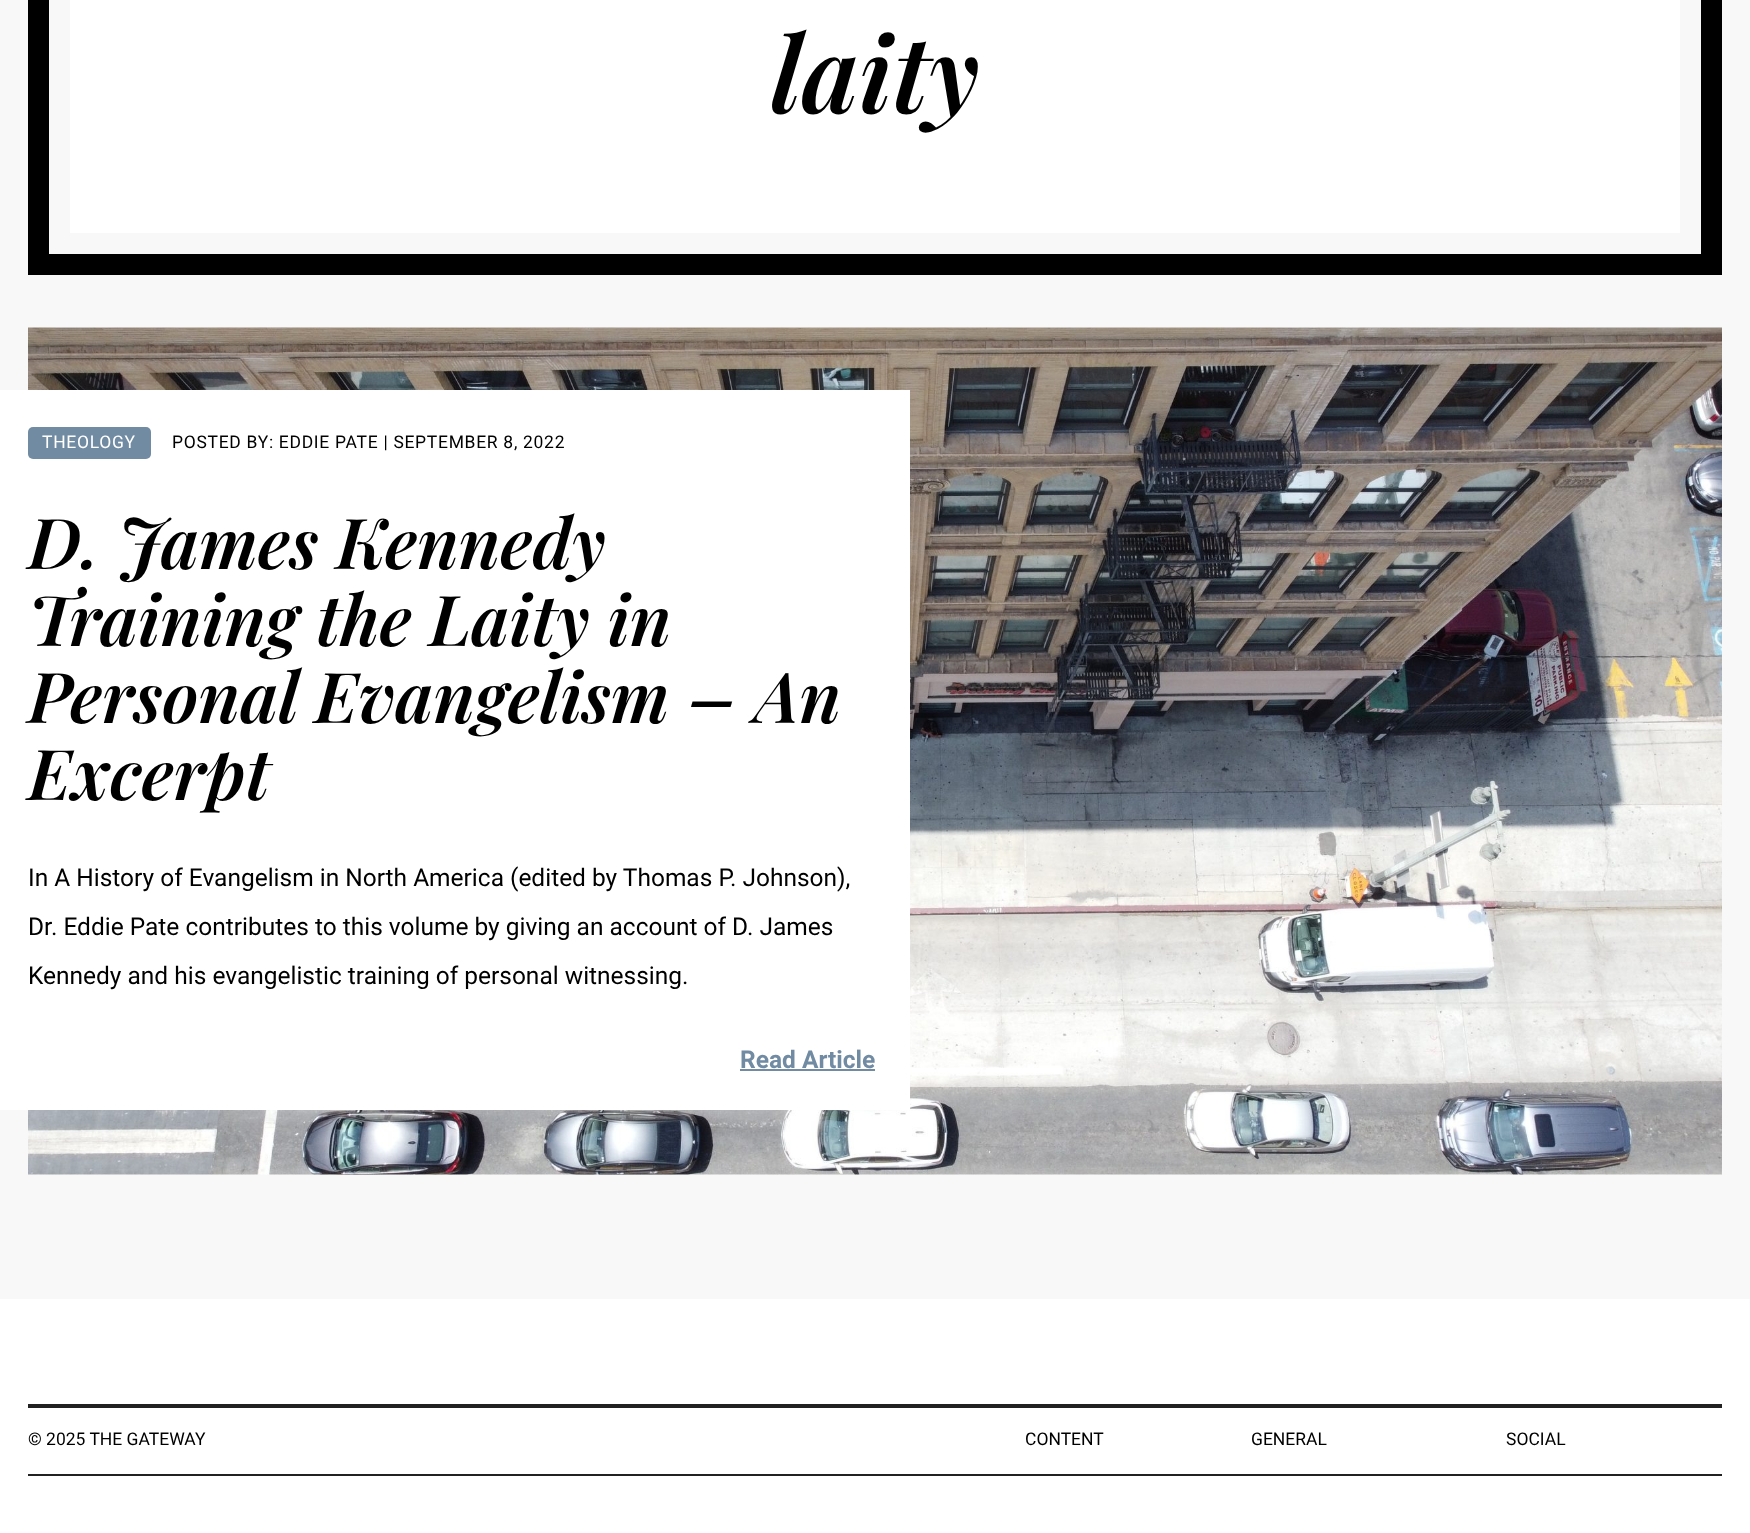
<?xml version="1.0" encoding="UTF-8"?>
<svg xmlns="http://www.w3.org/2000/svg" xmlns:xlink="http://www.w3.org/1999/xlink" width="1750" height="1533">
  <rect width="100%" height="100%" fill="#ffffff" />
  <rect width="1750" height="1299" fill="#f8f8f8" />
  <rect x="38.5" y="-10.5" width="1673" height="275" fill="none" stroke="#000000" stroke-width="21" />
  <rect x="70" width="1610" height="233" fill="#ffffff" />
  <image x="28" y="327" width="1694" height="848" xlink:href="image1.png" />
  <rect y="390" width="910" height="720" fill="#ffffff" />
  <rect x="28" y="427" width="123" height="32" rx="5" fill="#718ba3" />
  <rect x="740" y="1069" width="135" height="2" fill="#718ba3" />
  <rect x="28" y="1404" width="1694" height="4" fill="#212121" />
  <rect x="28" y="1474" width="1694" height="2" fill="#212121" />
  <text x="771" y="113" style="font-family: Playfair Display; font-size: 105px; font-weight: 600; font-style: italic; fill: #000000">laity</text>
  <text x="42" y="448" style="font-family: Roboto; font-size: 17.5px; letter-spacing: 0.7px; fill: #ffffff">THEOLOGY</text>
  <text x="172" y="448" style="font-family: Roboto; font-size: 17.5px; letter-spacing: 0.7px; fill: #000000">POSTED BY: EDDIE PATE | SEPTEMBER 8, 2022</text>
  <text x="28" y="569" style="font-family: Playfair Display; font-size: 70px; font-weight: 600; font-style: italic; fill: #000000">D. James Kennedy</text>
  <text x="28" y="646" style="font-family: Playfair Display; font-size: 70px; font-weight: 600; font-style: italic; fill: #000000">Training the Laity in</text>
  <text x="28" y="723" style="font-family: Playfair Display; font-size: 70px; font-weight: 600; font-style: italic; fill: #000000">Personal Evangelism – An</text>
  <text x="28" y="800" style="font-family: Playfair Display; font-size: 70px; font-weight: 600; font-style: italic; fill: #000000">Excerpt</text>
  <text x="28" y="886" style="font-family: Roboto; font-size: 24.5px; fill: #000000">In A History of Evangelism in North America (edited by Thomas P. Johnson),</text>
  <text x="28" y="935" style="font-family: Roboto; font-size: 24.5px; fill: #000000">Dr. Eddie Pate contributes to this volume by giving an account of D. James</text>
  <text x="28" y="984" style="font-family: Roboto; font-size: 24.5px; fill: #000000">Kennedy and his evangelistic training of personal witnessing.</text>
  <text x="740" y="1068" style="font-family: Roboto; font-size: 24.5px; font-weight: bold; fill: #718ba3">Read Article</text>
  <text x="28" y="1445" style="font-family: Roboto; font-size: 17.5px; fill: #000000">© 2025 THE GATEWAY</text>
  <text x="1025" y="1445" style="font-family: Roboto; font-size: 17.5px; fill: #000000">CONTENT</text>
  <text x="1251" y="1445" style="font-family: Roboto; font-size: 17.5px; fill: #000000">GENERAL</text>
  <text x="1506" y="1445" style="font-family: Roboto; font-size: 17.5px; fill: #000000">SOCIAL</text>
</svg>
